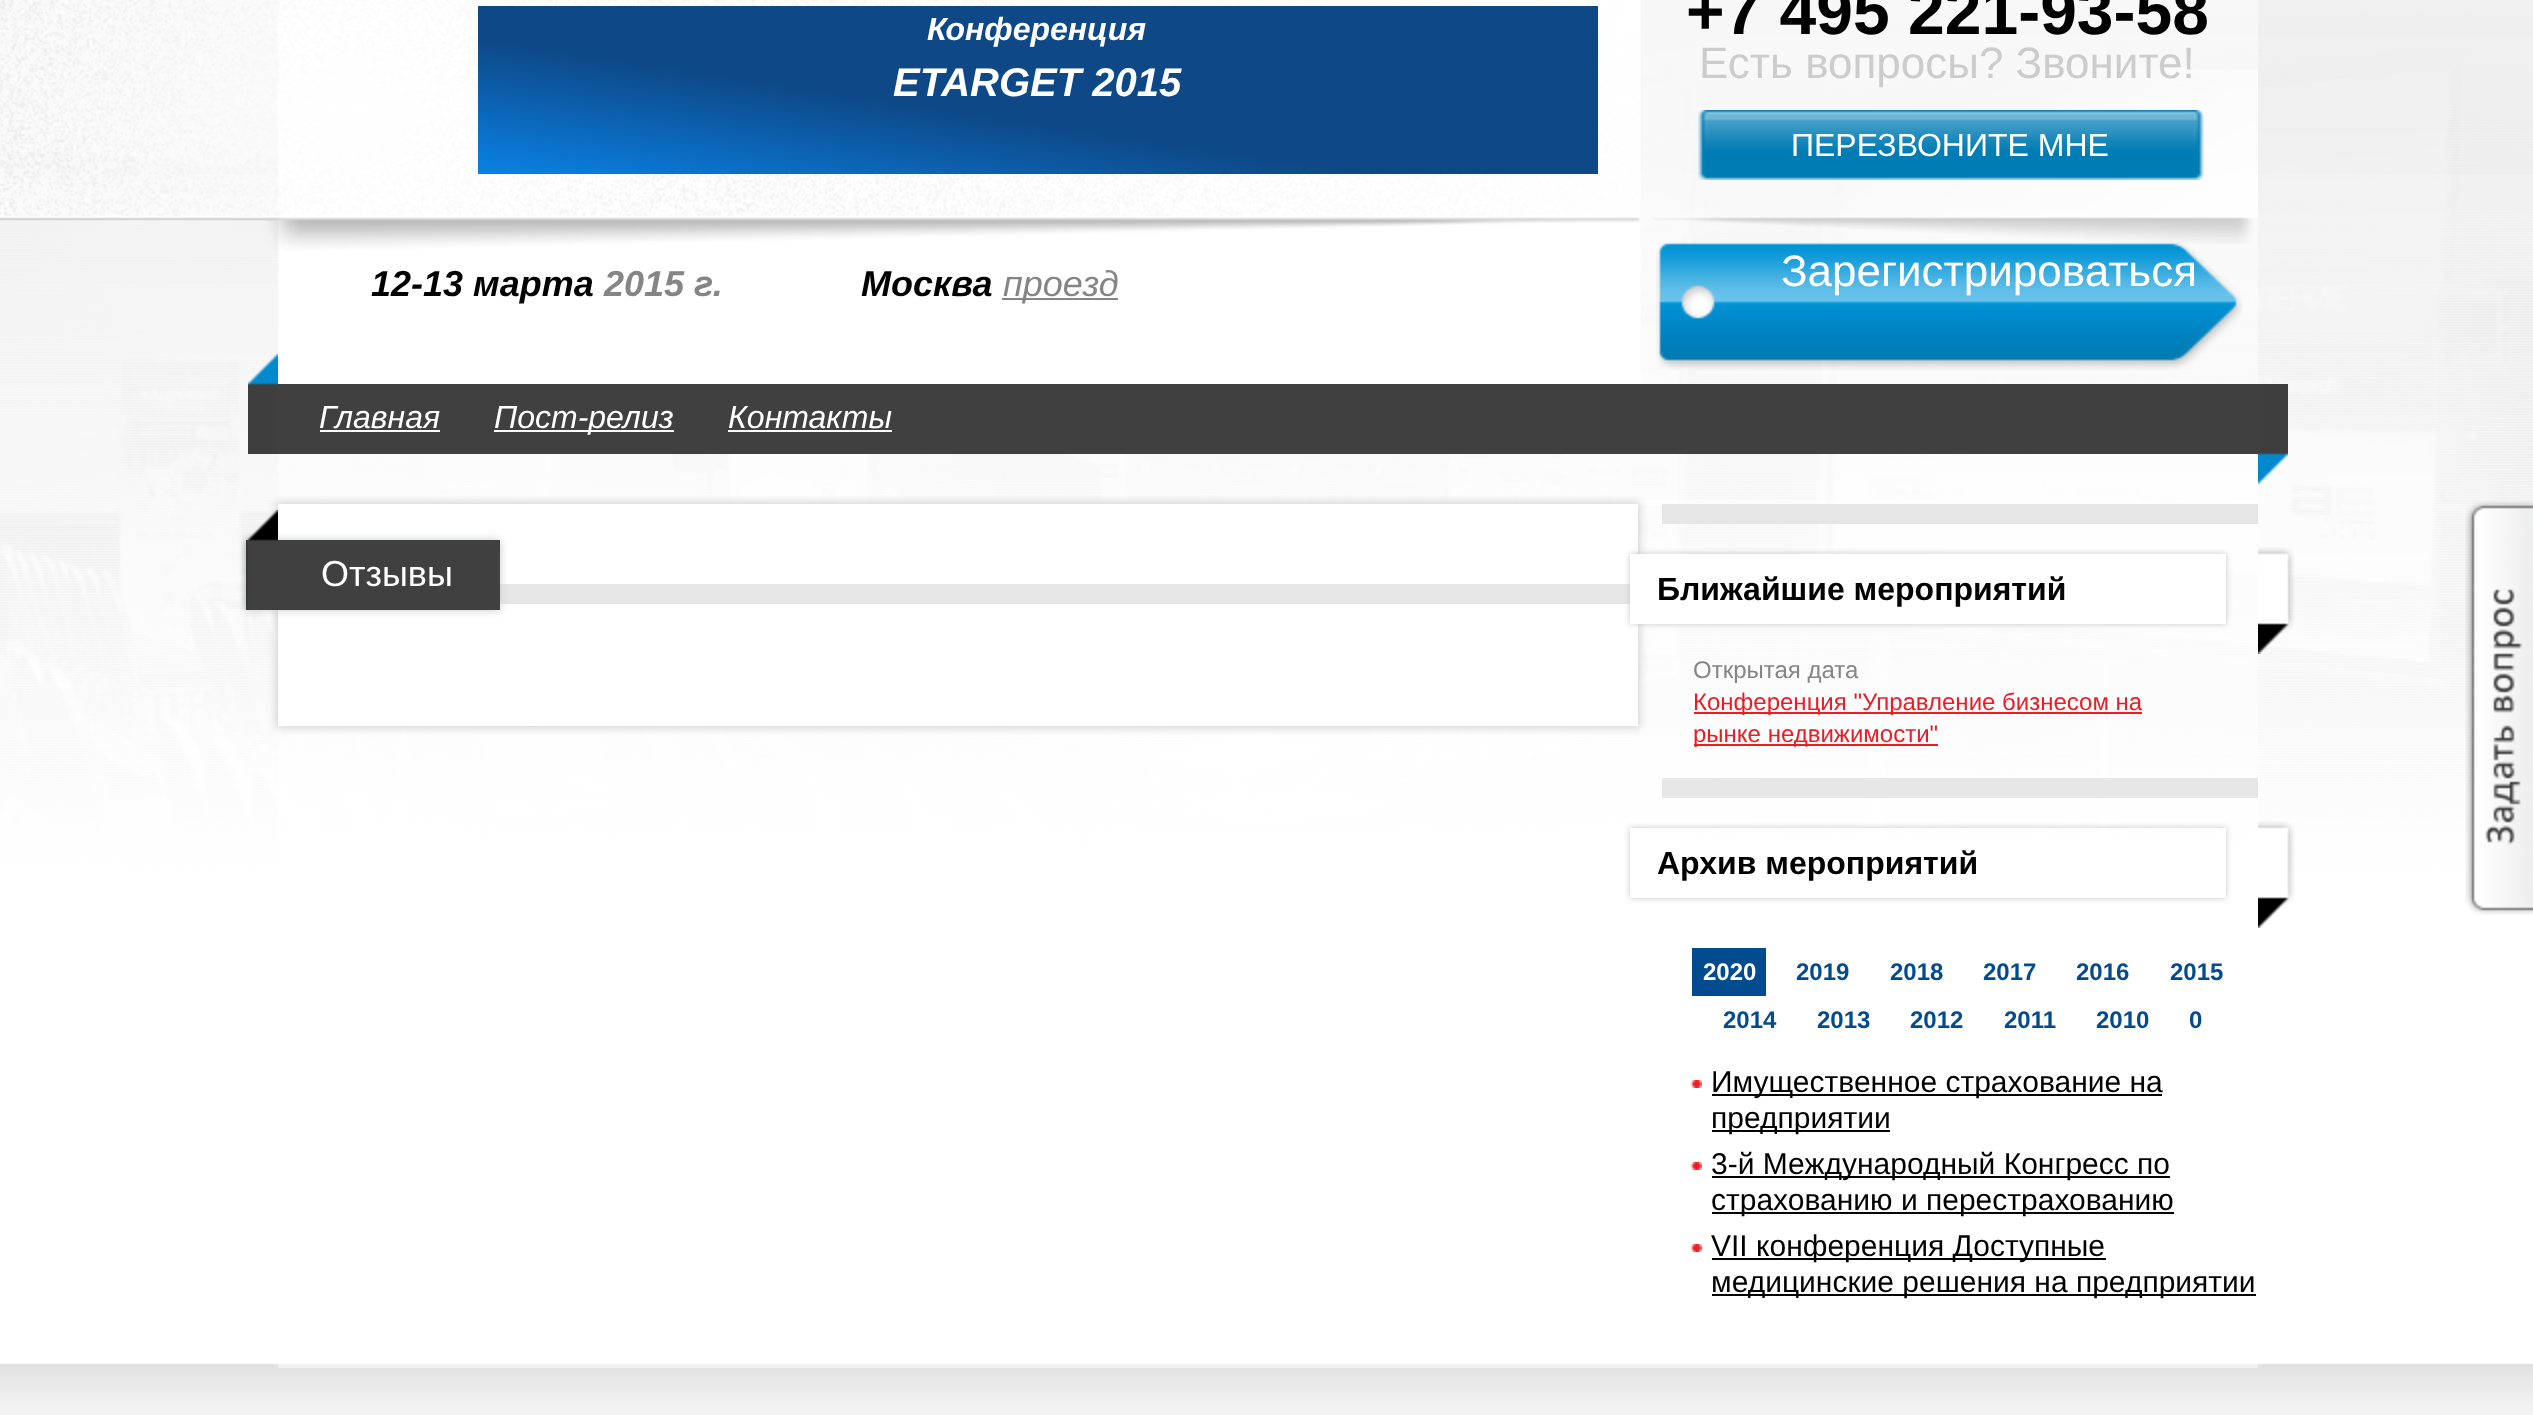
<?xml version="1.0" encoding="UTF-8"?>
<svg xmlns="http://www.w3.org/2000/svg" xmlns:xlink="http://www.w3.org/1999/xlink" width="2533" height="1415">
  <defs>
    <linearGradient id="g1" gradientUnits="userSpaceOnUse" x1="1013" y1="254" x2="1063" y2="-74"><stop offset="0" stop-color="#0a81e4" /><stop offset="0.4" stop-color="#0e4886" /></linearGradient>
    <clipPath id="clip1"><rect x="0" y="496" width="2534" height="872" /></clipPath>
    <clipPath id="clip2"><path d="M 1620 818 h 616 v 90 h -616 z m 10 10 h 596 v 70 h -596 z" clip-rule="evenodd" /></clipPath>
  </defs>
  <rect width="100%" height="100%" fill="#ffffff" />
  <image x="0" y="0" width="2533" height="885" xlink:href="image1.png" />
  <image x="0" y="0" width="2533" height="885" xlink:href="image2.png" />
  <image x="0" y="174" width="2533" height="1241" xlink:href="image3.png" />
  <rect x="278" width="1980" height="506" fill="#ffffff" fill-opacity="0.51" />
  <image x="0" y="0" width="1641" height="384" xlink:href="image4.png" />
  <rect x="478" y="6" width="1120" height="168" fill="url(#g1)" />
  <rect x="1002" y="298" width="116" height="2" fill="#858585" />
  <image x="1654" y="69" width="604" height="175" xlink:href="image5.png" />
  <image x="1698" y="110" width="506" height="70" xlink:href="image6.png" />
  <image x="1656" y="242" width="587" height="128" xlink:href="image7.png" />
  <rect x="278" y="384" width="1980" height="70" fill="#404040" />
  <image x="248" y="354" width="30" height="100" xlink:href="image8.png" />
  <rect x="320" y="430" width="120" height="2" fill="#ffffff" />
  <rect x="494" y="430" width="180" height="2" fill="#ffffff" />
  <rect x="728" y="430" width="164" height="2" fill="#ffffff" />
  <image x="2258" y="384" width="30" height="100" xlink:href="image9.png" />
  <rect x="278" y="500" width="1980" height="868" fill="#ffffff" fill-opacity="0.51" />
  <g clip-path="url(#clip1)">
    <rect x="276" y="502" width="1364" height="226" fill="#d1d2d1" filter="blur(4px)" />
  </g>
  <rect x="278" y="504" width="1360" height="222" fill="#ffffff" />
  <rect x="500" y="584" width="1130" height="20" fill="#e6e6e6" />
  <rect x="246" y="540" width="254" height="70" fill="#c7cac9" filter="blur(4px)" />
  <rect x="246" y="540" width="254" height="70" fill="#404040" />
  <image x="241" y="510" width="37" height="100" xlink:href="image10.png" />
  <rect x="1662" y="504" width="596" height="20" fill="#e6e6e6" />
  <rect x="1630" y="554" width="596" height="70" fill="#c6c7c7" filter="blur(3px)" />
  <rect x="1630" y="554" width="596" height="70" fill="#ffffff" />
  <image x="2258" y="547" width="37" height="107" xlink:href="image11.png" />
  <rect x="1694" y="712" width="448" height="2" fill="#ed1c24" />
  <rect x="1694" y="744" width="244" height="2" fill="#ed1c24" />
  <rect x="1662" y="778" width="596" height="20" fill="#e6e6e6" />
  <g clip-path="url(#clip2)">
    <rect x="1630" y="828" width="596" height="70" fill="#c6c7c7" filter="blur(3px)" />
  </g>
  <image x="2258" y="821" width="37" height="107" xlink:href="image12.png" />
  <rect x="1692" y="948" width="74" height="48" fill="#034b8f" />
  <image x="1690" y="1080" width="12" height="8" xlink:href="image13.png" />
  <rect x="1712" y="1094" width="450" height="2" fill="#000000" />
  <rect x="1712" y="1130" width="178" height="2" fill="#000000" />
  <image x="1690" y="1162" width="12" height="8" xlink:href="image13.png" />
  <rect x="1712" y="1176" width="458" height="2" fill="#000000" />
  <rect x="1712" y="1212" width="462" height="2" fill="#000000" />
  <image x="1690" y="1244" width="12" height="8" xlink:href="image13.png" />
  <rect x="1712" y="1258" width="394" height="2" fill="#000000" />
  <rect x="1712" y="1294" width="544" height="2" fill="#000000" />
  <image x="2465" y="501" width="68" height="414" xlink:href="image14.png" />
  <text x="927" y="40" style="font-family: Liberation Sans; font-size: 32px; font-weight: bold; font-style: italic; fill: #ffffff">Конференция</text>
  <text x="893" y="96" style="font-family: Liberation Sans; font-size: 40px; font-weight: bold; font-style: italic; fill: #ffffff">ETARGET 2015</text>
  <text x="371" y="296" style="font-family: Liberation Sans; font-size: 36px; font-weight: bold; font-style: italic; fill: #000000">12-13 марта</text>
  <text x="604" y="296" style="font-family: Liberation Sans; font-size: 36px; font-weight: bold; font-style: italic; fill: #858585">2015 г.</text>
  <text x="861" y="296" style="font-family: Liberation Sans; font-size: 36px; font-weight: bold; font-style: italic; fill: #000000">Москва</text>
  <text x="1003" y="296" style="font-family: Liberation Sans; font-size: 36px; font-style: italic; fill: #858585">проезд</text>
  <text x="1686" y="34" style="font-family: Liberation Sans; font-size: 66px; font-weight: bold; fill: #000000">+7 495 221-93-58</text>
  <text x="1699" y="78" style="font-family: Liberation Sans; font-size: 44px; fill: #cccccc">Есть вопросы? Звоните!</text>
  <text x="1791" y="156" style="font-family: Liberation Sans; font-size: 32px; fill: #ffffff">ПЕРЕЗВОНИТЕ МНЕ</text>
  <text x="1781" y="286" style="font-family: Liberation Sans; font-size: 44px; fill: #ffffff">Зарегистрироваться</text>
  <text x="319" y="428" style="font-family: Liberation Sans; font-size: 32px; font-style: italic; fill: #ffffff">Главная</text>
  <text x="494" y="428" style="font-family: Liberation Sans; font-size: 32px; font-style: italic; fill: #ffffff">Пост-релиз</text>
  <text x="728" y="428" style="font-family: Liberation Sans; font-size: 32px; font-style: italic; fill: #ffffff">Контакты</text>
  <text x="321" y="586" style="font-family: Liberation Sans; font-size: 36px; fill: #ffffff">Отзывы</text>
  <text x="1657" y="600" style="font-family: Liberation Sans; font-size: 32px; font-weight: bold; fill: #000000">Ближайшие мероприятий</text>
  <text x="1693" y="678" style="font-family: Liberation Sans; font-size: 24px; fill: #858585">Открытая дата</text>
  <text x="1693" y="710" style="font-family: Liberation Sans; font-size: 24px; fill: #ed1c24">Конференция "Управление бизнесом на</text>
  <text x="1693" y="742" style="font-family: Liberation Sans; font-size: 24px; fill: #ed1c24">рынке недвижимости"</text>
  <text x="1657" y="874" style="font-family: Liberation Sans; font-size: 32px; font-weight: bold; fill: #000000">Архив мероприятий</text>
  <text x="1703" y="980" style="font-family: Liberation Sans; font-size: 24px; font-weight: bold; fill: #ffffff">2020</text>
  <text x="1796" y="980" style="font-family: Liberation Sans; font-size: 24px; font-weight: bold; fill: #034b8f">2019</text>
  <text x="1890" y="980" style="font-family: Liberation Sans; font-size: 24px; font-weight: bold; fill: #034b8f">2018</text>
  <text x="1983" y="980" style="font-family: Liberation Sans; font-size: 24px; font-weight: bold; fill: #034b8f">2017</text>
  <text x="2076" y="980" style="font-family: Liberation Sans; font-size: 24px; font-weight: bold; fill: #034b8f">2016</text>
  <text x="2170" y="980" style="font-family: Liberation Sans; font-size: 24px; font-weight: bold; fill: #034b8f">2015</text>
  <text x="1723" y="1028" style="font-family: Liberation Sans; font-size: 24px; font-weight: bold; fill: #034b8f">2014</text>
  <text x="1817" y="1028" style="font-family: Liberation Sans; font-size: 24px; font-weight: bold; fill: #034b8f">2013</text>
  <text x="1910" y="1028" style="font-family: Liberation Sans; font-size: 24px; font-weight: bold; fill: #034b8f">2012</text>
  <text x="2004" y="1028" style="font-family: Liberation Sans; font-size: 24px; font-weight: bold; fill: #034b8f">2011</text>
  <text x="2096" y="1028" style="font-family: Liberation Sans; font-size: 24px; font-weight: bold; fill: #034b8f">2010</text>
  <text x="2189" y="1028" style="font-family: Liberation Sans; font-size: 24px; font-weight: bold; fill: #034b8f">0</text>
  <text x="1711" y="1092" style="font-family: Liberation Sans; font-size: 30px; fill: #000000">Имущественное страхование на</text>
  <text x="1711" y="1128" style="font-family: Liberation Sans; font-size: 30px; fill: #000000">предприятии</text>
  <text x="1711" y="1174" style="font-family: Liberation Sans; font-size: 30px; fill: #000000">3-й Международный Конгресс по</text>
  <text x="1711" y="1210" style="font-family: Liberation Sans; font-size: 30px; fill: #000000">страхованию и перестрахованию</text>
  <text x="1711" y="1256" style="font-family: Liberation Sans; font-size: 30px; fill: #000000">VII конференция Доступные</text>
  <text x="1711" y="1292" style="font-family: Liberation Sans; font-size: 30px; fill: #000000">медицинские решения на предприятии</text>
</svg>
